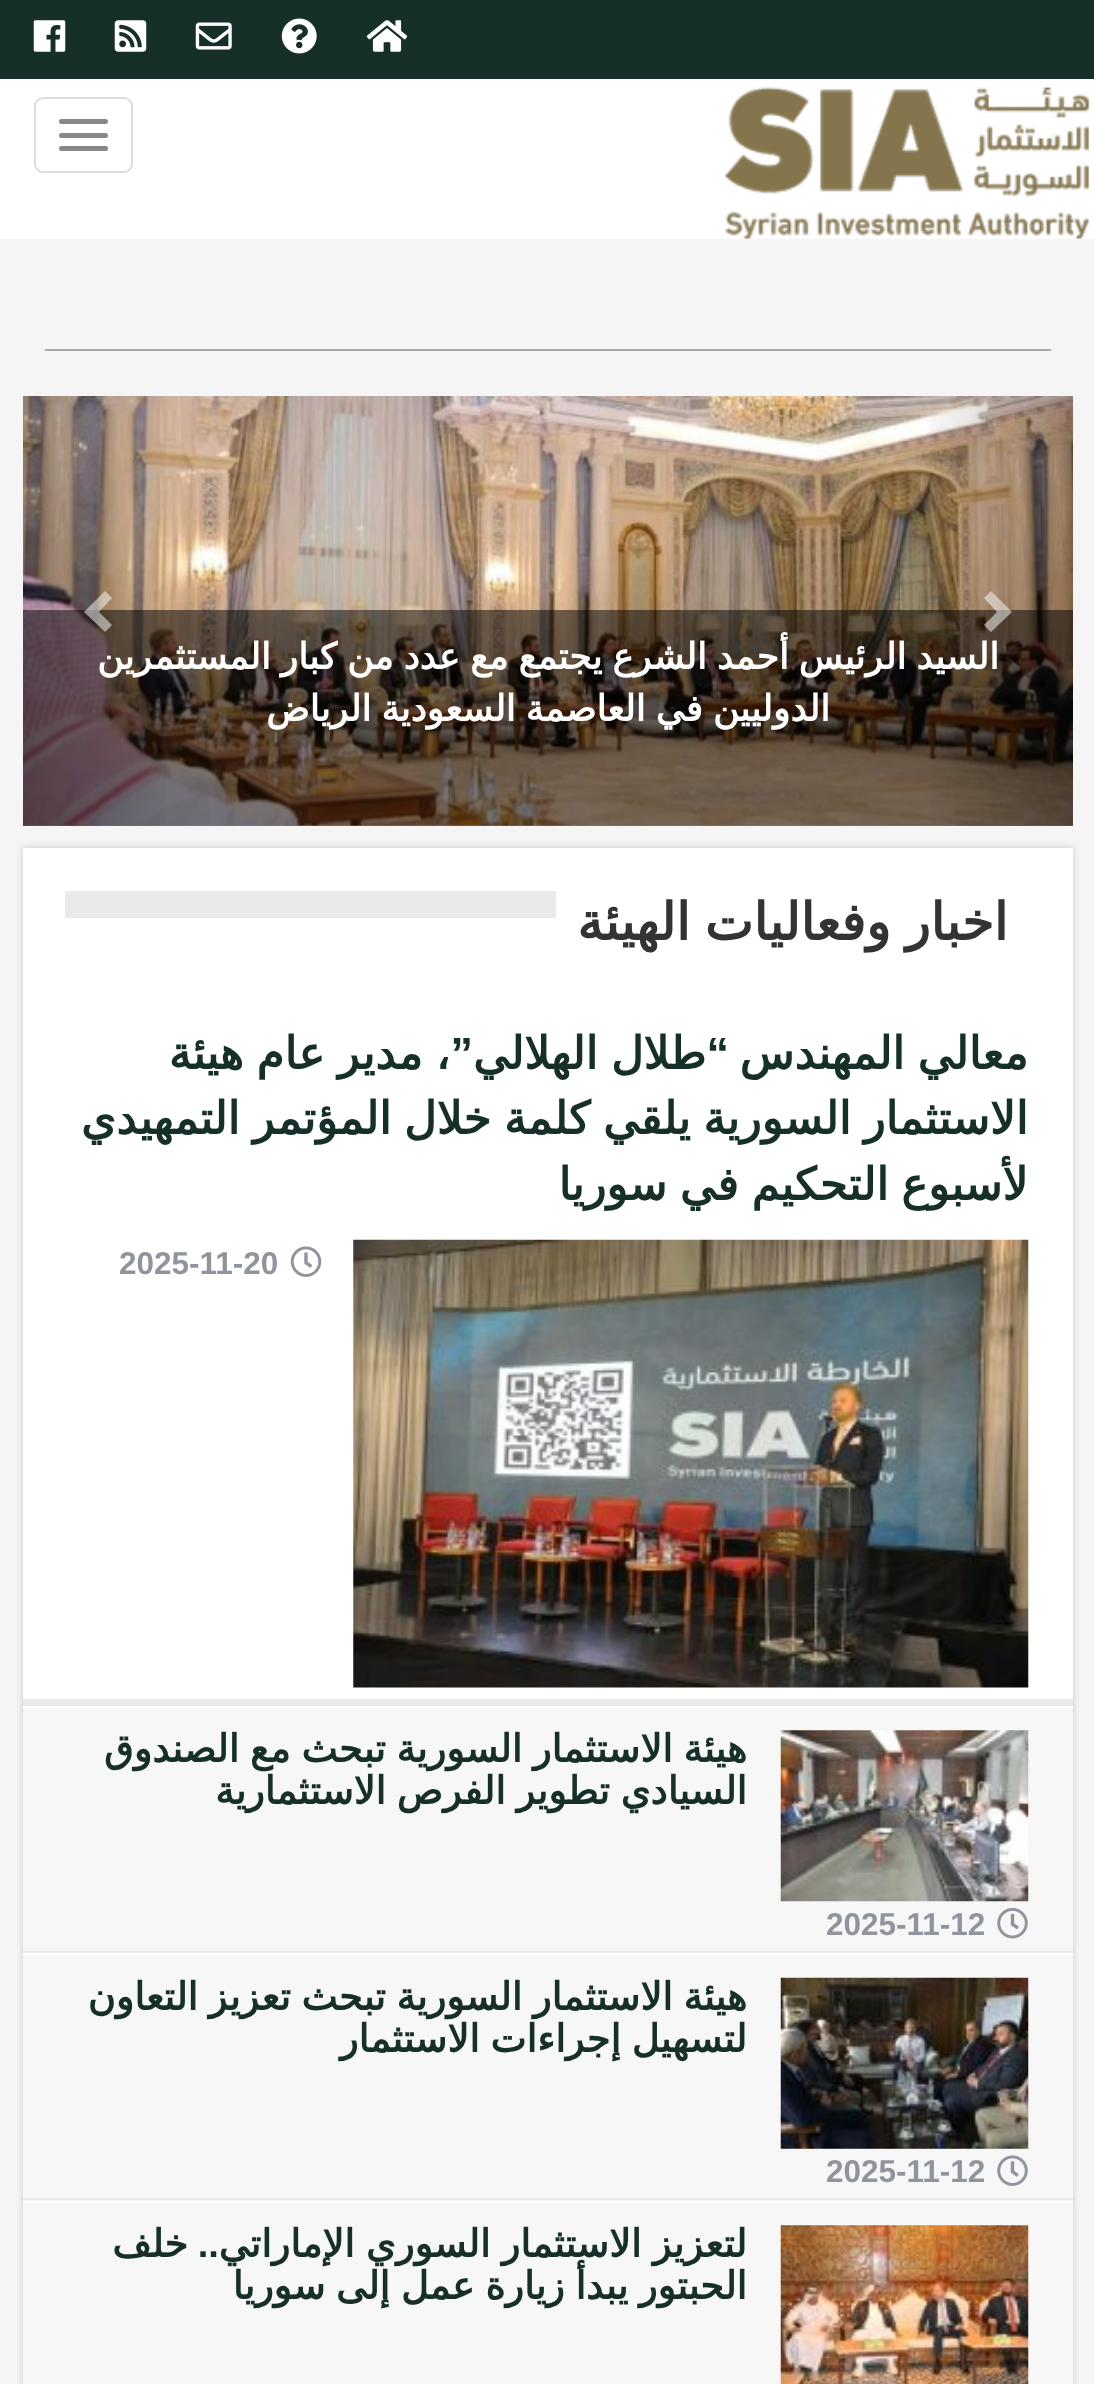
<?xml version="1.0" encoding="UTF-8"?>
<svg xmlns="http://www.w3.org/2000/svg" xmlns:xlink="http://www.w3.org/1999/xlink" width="1094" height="2384">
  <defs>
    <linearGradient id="g1" gradientUnits="userSpaceOnUse" x1="916" y1="611" x2="1073" y2="611"><stop offset="0" stop-color="#000000" stop-opacity="0" /><stop offset="1" stop-color="#000000" stop-opacity="0.25" /></linearGradient>
    <linearGradient id="g2" gradientUnits="userSpaceOnUse" x1="22" y1="611" x2="180" y2="611"><stop offset="0" stop-color="#000000" stop-opacity="0.25" /><stop offset="1" stop-color="#000000" stop-opacity="0" /></linearGradient>
  </defs>
  <rect width="100%" height="100%" fill="#f5f5f5" />
  <rect width="1094" height="79" fill="#163029" />
  <image x="366" y="20" width="42" height="32" xlink:href="image1.png" />
  <image x="281" y="18" width="36" height="36" xlink:href="image2.png" />
  <image x="195" y="22" width="37" height="28" xlink:href="image3.png" />
  <image x="114" y="20" width="33" height="32" xlink:href="image4.png" />
  <image x="33" y="20" width="33" height="32" xlink:href="image5.png" />
  <rect y="79" width="1094" height="160" fill="#ffffff" />
  <image x="725" y="87" width="365" height="152" xlink:href="image6.png" />
  <rect x="35" y="98" width="97" height="74" rx="8" fill="none" stroke="#dddddd" stroke-width="2" />
  <rect x="59" y="119" width="49" height="5" rx="2.5" fill="#888888" />
  <rect x="59" y="133" width="49" height="5" rx="2.5" fill="#888888" />
  <rect x="59" y="146" width="49" height="5" rx="2.5" fill="#888888" />
  <rect x="45" y="349" width="1006" height="2" fill="#aaaaaa" />
  <image x="23" y="396" width="1050" height="430" xlink:href="image7.png" />
  <rect x="23" y="610" width="1050" height="216" fill="#000000" fill-opacity="0.5" />
  <rect x="930" y="396" width="143" height="430" fill="url(#g1)" />
  <path d="M 1012 612 l -21 20 l -7 -7 l 13 -13 l -13 -14 l 7 -7 z" fill="#ffffff" fill-opacity="0.5" />
  <rect x="23" y="396" width="143" height="430" fill="url(#g2)" />
  <path d="M 112 598 l -13 14 l 13 13 l -7 7 l -21 -20 l 21 -21 z" fill="#ffffff" fill-opacity="0.5" />
  <rect x="23" y="848" width="1050" height="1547" fill="#cacaca" filter="blur(3.5px)" />
  <rect x="23" y="848" width="1050" height="851" fill="#ffffff" />
  <rect x="65" y="891" width="491" height="27" fill="#ece9e9" />
  <rect x="23" y="1699" width="1050" height="7" fill="#eaeaea" />
  <image x="353" y="1239" width="676" height="449" xlink:href="image8.png" />
  <image x="290" y="1246" width="32" height="31" xlink:href="image9.png" />
  <rect x="23" y="1708" width="1050" height="243" fill="#f7f7f7" />
  <rect x="23" y="1706" width="1050" height="2" fill="#ffffff" />
  <rect x="23" y="1951" width="1050" height="2" fill="#eaeaea" />
  <image x="780" y="1730" width="249" height="172" xlink:href="image10.png" />
  <image x="997" y="1907" width="31" height="32" xlink:href="image11.png" />
  <rect x="23" y="1955" width="1050" height="246" fill="#f7f7f7" />
  <rect x="23" y="1953" width="1050" height="2" fill="#ffffff" />
  <rect x="23" y="2198" width="1050" height="2" fill="#eaeaea" />
  <image x="780" y="1977" width="249" height="172" xlink:href="image12.png" />
  <image x="997" y="2155" width="31" height="31" xlink:href="image13.png" />
  <rect x="23" y="2203" width="1050" height="181" fill="#f7f7f7" />
  <rect x="23" y="2201" width="1050" height="2" fill="#ffffff" />
  <image x="780" y="2225" width="249" height="159" xlink:href="image14.png" />
  <text x="999" y="669" word-spacing="-1.5" style="font-family: DejaVu Sans; font-size: 36px; font-weight: bold; direction: rtl; fill: #ffffff">السيد الرئيس أحمد الشرع يجتمع مع عدد من كبار المستثمرين</text>
  <text x="830" y="721" word-spacing="-1.5" style="font-family: DejaVu Sans; font-size: 36px; font-weight: bold; direction: rtl; fill: #ffffff">الدوليين في العاصمة السعودية الرياض</text>
  <text x="1008" y="940" word-spacing="-2" style="font-family: DejaVu Sans; font-size: 51.75px; font-weight: bold; direction: rtl; fill: #333333">اخبار وفعاليات الهيئة</text>
  <text x="1028" y="1069" word-spacing="-1.5" style="font-family: DejaVu Sans; font-size: 45px; font-weight: bold; direction: rtl; fill: #162f29">معالي المهندس</text>
  <text x="729" y="1069" style="font-family: Liberation Sans; font-size: 45px; font-weight: bold; direction: rtl; fill: #162f29">“</text>
  <text x="706" y="1069" word-spacing="-1.5" style="font-family: DejaVu Sans; font-size: 45px; font-weight: bold; direction: rtl; fill: #162f29">طلال الهلالي</text>
  <text x="473" y="1069" style="font-family: Liberation Sans; font-size: 45px; font-weight: bold; direction: rtl; fill: #162f29">”</text>
  <text x="450" y="1069" word-spacing="-1.5" style="font-family: DejaVu Sans; font-size: 45px; font-weight: bold; direction: rtl; fill: #162f29">، مدير عام هيئة</text>
  <text x="1028" y="1134" word-spacing="-1.75" style="font-family: DejaVu Sans; font-size: 45px; font-weight: bold; direction: rtl; fill: #162f29">الاستثمار السورية يلقي كلمة خلال المؤتمر التمهيدي</text>
  <text x="1028" y="1200" word-spacing="-1.75" style="font-family: DejaVu Sans; font-size: 45px; font-weight: bold; direction: rtl; fill: #162f29">لأسبوع التحكيم في سوريا</text>
  <text x="119" y="1274" style="font-family: Liberation Sans; font-size: 31.5px; font-weight: bold; fill: #90949c">2025-11-20</text>
  <text x="747" y="1762" word-spacing="-1.5" style="font-family: DejaVu Sans; font-size: 38.25px; font-weight: bold; direction: rtl; fill: #162f29">هيئة الاستثمار السورية تبحث مع الصندوق</text>
  <text x="747" y="1804" word-spacing="-1.5" style="font-family: DejaVu Sans; font-size: 38.25px; font-weight: bold; direction: rtl; fill: #162f29">السيادي تطوير الفرص الاستثمارية</text>
  <text x="826" y="1935" style="font-family: Liberation Sans; font-size: 31.5px; font-weight: bold; fill: #90949c">2025-11-12</text>
  <text x="747" y="2010" word-spacing="-1.5" style="font-family: DejaVu Sans; font-size: 38.25px; font-weight: bold; direction: rtl; fill: #162f29">هيئة الاستثمار السورية تبحث تعزيز التعاون</text>
  <text x="747" y="2052" word-spacing="-1.5" style="font-family: DejaVu Sans; font-size: 38.25px; font-weight: bold; direction: rtl; fill: #162f29">لتسهيل إجراءات الاستثمار</text>
  <text x="826" y="2182" style="font-family: Liberation Sans; font-size: 31.5px; font-weight: bold; fill: #90949c">2025-11-12</text>
  <text x="747" y="2257" word-spacing="-1" style="font-family: DejaVu Sans; font-size: 38.25px; font-weight: bold; direction: rtl; fill: #162f29">لتعزيز الاستثمار السوري الإماراتي</text>
  <text x="219" y="2257" style="font-family: Liberation Sans; font-size: 38.25px; font-weight: bold; direction: rtl; fill: #162f29">..</text>
  <text x="188" y="2257" style="font-family: DejaVu Sans; font-size: 38.25px; font-weight: bold; direction: rtl; fill: #162f29">خلف</text>
  <text x="747" y="2299" word-spacing="-1.5" style="font-family: DejaVu Sans; font-size: 38.25px; font-weight: bold; direction: rtl; fill: #162f29">الحبتور يبدأ زيارة عمل إلى سوريا</text>
</svg>
